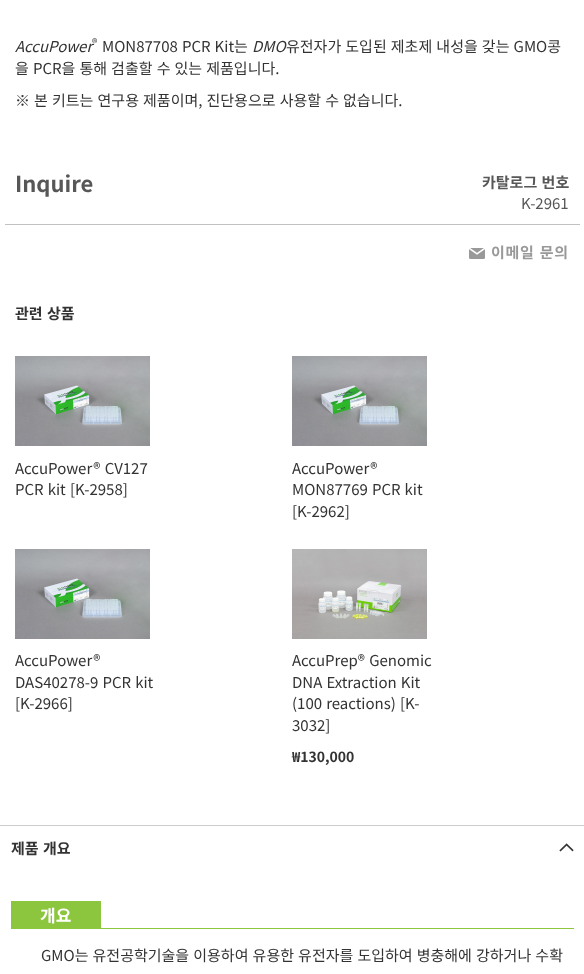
<?xml version="1.0" encoding="UTF-8"?>
<svg xmlns="http://www.w3.org/2000/svg" xmlns:xlink="http://www.w3.org/1999/xlink" width="584" height="974">
  <rect width="100%" height="100%" fill="#ffffff" />
  <rect x="5" y="224" width="575" height="1" fill="#c1c1c1" />
  <image x="469" y="248" width="16" height="11" xlink:href="image1.png" />
  <image x="15" y="356" width="135" height="90" xlink:href="image2.png" />
  <image x="292" y="356" width="135" height="90" xlink:href="image3.png" />
  <image x="15" y="549" width="135" height="90" xlink:href="image4.png" />
  <image x="292" y="549" width="135" height="90" xlink:href="image5.png" />
  <rect y="825" width="584" height="1" fill="#cccccc" />
  <image x="559" y="843" width="15" height="9" xlink:href="image6.png" />
  <rect x="11" y="901" width="90" height="27" fill="#8cc63e" />
  <rect x="11" y="928" width="563" height="1" fill="#8cc63e" />
  <text x="102" y="52" word-spacing="0.75" style="font-family: Noto Sans KR; font-size: 15px; fill: #333333">MON87708 PCR Kit는</text>
  <text x="252" y="52" style="font-family: Noto Sans KR; font-size: 15px; font-style: italic; fill: #333333">DMO</text>
  <text x="286" y="52" word-spacing="0.75" style="font-family: Noto Sans KR; font-size: 15px; fill: #333333">유전자가 도입된 제초제 내성을 갖는 GMO콩</text>
  <text x="15" y="52" style="font-family: Noto Sans KR; font-size: 15px; font-style: italic; fill: #333333">AccuPower</text>
  <text x="92" y="47" style="font-family: Noto Sans KR; font-size: 11px; fill: #333333">®</text>
  <text x="15" y="74" word-spacing="0.75" style="font-family: Noto Sans KR; font-size: 15px; fill: #333333">을 PCR을 통해 검출할 수 있는 제품입니다.</text>
  <text x="15" y="106" word-spacing="0.75" style="font-family: Noto Sans KR; font-size: 15px; fill: #333333">※ 본 키트는 연구용 제품이며, 진단용으로 사용할 수 없습니다.</text>
  <text x="15" y="192" style="font-family: Noto Sans KR; font-size: 22px; font-weight: bold; fill: #575757">Inquire</text>
  <text x="482" y="188" word-spacing="1" style="font-family: Noto Sans KR; font-size: 15px; font-weight: bold; fill: #575757">카탈로그 번호</text>
  <text x="521" y="209" style="font-family: Noto Sans KR; font-size: 15px; fill: #575757">K-2961</text>
  <text x="491" y="258" word-spacing="1" style="font-family: Noto Sans KR; font-size: 15px; font-weight: bold; letter-spacing: 0.75px; fill: #999999">이메일 문의</text>
  <text x="15" y="319" word-spacing="1" style="font-family: Noto Sans KR; font-size: 15px; font-weight: bold; fill: #333333">관련 상품</text>
  <text x="15" y="474" word-spacing="1" style="font-family: Noto Sans KR; font-size: 15px; fill: #333333">AccuPower® CV127</text>
  <text x="15" y="495" word-spacing="0.75" style="font-family: Noto Sans KR; font-size: 15px; fill: #333333">PCR kit</text>
  <text x="70" y="495" style="font-family: Noto Sans KR; font-size: 15px; fill: #333333">[K-2958]</text>
  <text x="292" y="474" style="font-family: Noto Sans KR; font-size: 15px; fill: #333333">AccuPower®</text>
  <text x="292" y="495" word-spacing="0.75" style="font-family: Noto Sans KR; font-size: 15px; fill: #333333">MON87769 PCR kit</text>
  <text x="292" y="517" style="font-family: Noto Sans KR; font-size: 15px; fill: #333333">[K-2962]</text>
  <text x="15" y="666" style="font-family: Noto Sans KR; font-size: 15px; fill: #333333">AccuPower®</text>
  <text x="15" y="688" word-spacing="0.75" style="font-family: Noto Sans KR; font-size: 15px; fill: #333333">DAS40278-9 PCR kit</text>
  <text x="15" y="709" style="font-family: Noto Sans KR; font-size: 15px; fill: #333333">[K-2966]</text>
  <text x="292" y="666" word-spacing="1" style="font-family: Noto Sans KR; font-size: 15px; fill: #333333">AccuPrep® Genomic</text>
  <text x="292" y="688" word-spacing="0.75" style="font-family: Noto Sans KR; font-size: 15px; fill: #333333">DNA Extraction Kit</text>
  <text x="292" y="709" word-spacing="0.75" style="font-family: Noto Sans KR; font-size: 15px; fill: #333333">(100 reactions)</text>
  <text x="400" y="709" style="font-family: Noto Sans KR; font-size: 15px; fill: #333333">[K-</text>
  <text x="292" y="731" style="font-family: Noto Sans KR; font-size: 15px; fill: #333333">3032]</text>
  <text x="292" y="762" style="font-family: Noto Sans KR; font-size: 14px; font-weight: bold; fill: #333333">₩130,000</text>
  <text x="11" y="854" word-spacing="1" style="font-family: Noto Sans KR; font-size: 15px; font-weight: bold; fill: #333333">제품 개요</text>
  <text x="40" y="922" style="font-family: Noto Sans KR; font-size: 17px; font-weight: bold; fill: #ffffff">개요</text>
  <text x="41" y="961" word-spacing="0.75" style="font-family: Noto Sans KR; font-size: 15px; fill: #333333">GMO는 유전공학기술을 이용하여 유용한 유전자를 도입하여 병충해에 강하거나 수확</text>
</svg>
